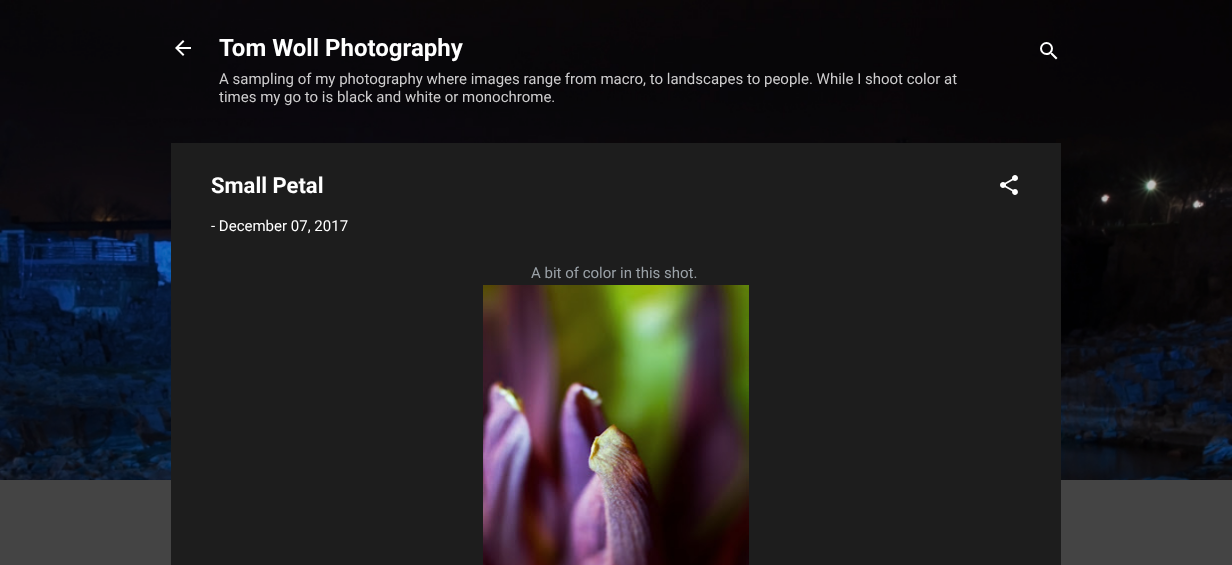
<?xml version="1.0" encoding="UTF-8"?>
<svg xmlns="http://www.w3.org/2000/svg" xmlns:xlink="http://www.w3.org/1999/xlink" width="1232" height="565">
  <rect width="100%" height="100%" fill="#444444" />
  <image x="0" y="0" width="1232" height="480" xlink:href="image1.png" />
  <image x="175" y="40" width="16" height="16" xlink:href="image2.png" />
  <image x="1040" y="42" width="18" height="18" xlink:href="image3.png" />
  <rect x="171" y="143" width="890" height="422" fill="#1d1d1d" />
  <image x="1000" y="175" width="18" height="20" xlink:href="image4.png" />
  <image x="483" y="285" width="266" height="280" xlink:href="image5.png" />
  <text x="219" y="56" style="font-family: Roboto; font-size: 24px; font-weight: bold; fill: #ffffff">Tom Woll Photography</text>
  <text x="219" y="84" style="font-family: Roboto; font-size: 15px; fill: #cecdce">A sampling of my photography where images range from macro, to landscapes to people. While I shoot color at</text>
  <text x="219" y="102" style="font-family: Roboto; font-size: 15px; fill: #cecdce">times my go to is black and white or monochrome.</text>
  <text x="211" y="193" style="font-family: Roboto; font-size: 22px; font-weight: bold; fill: #ffffff">Small Petal</text>
  <text x="211" y="231" style="font-family: Roboto; font-size: 15px; fill: #ffffff">- December 07, 2017</text>
  <text x="531" y="278" style="font-family: Roboto; font-size: 15px; fill: #9ba2a8">A bit of color in this shot.</text>
</svg>
